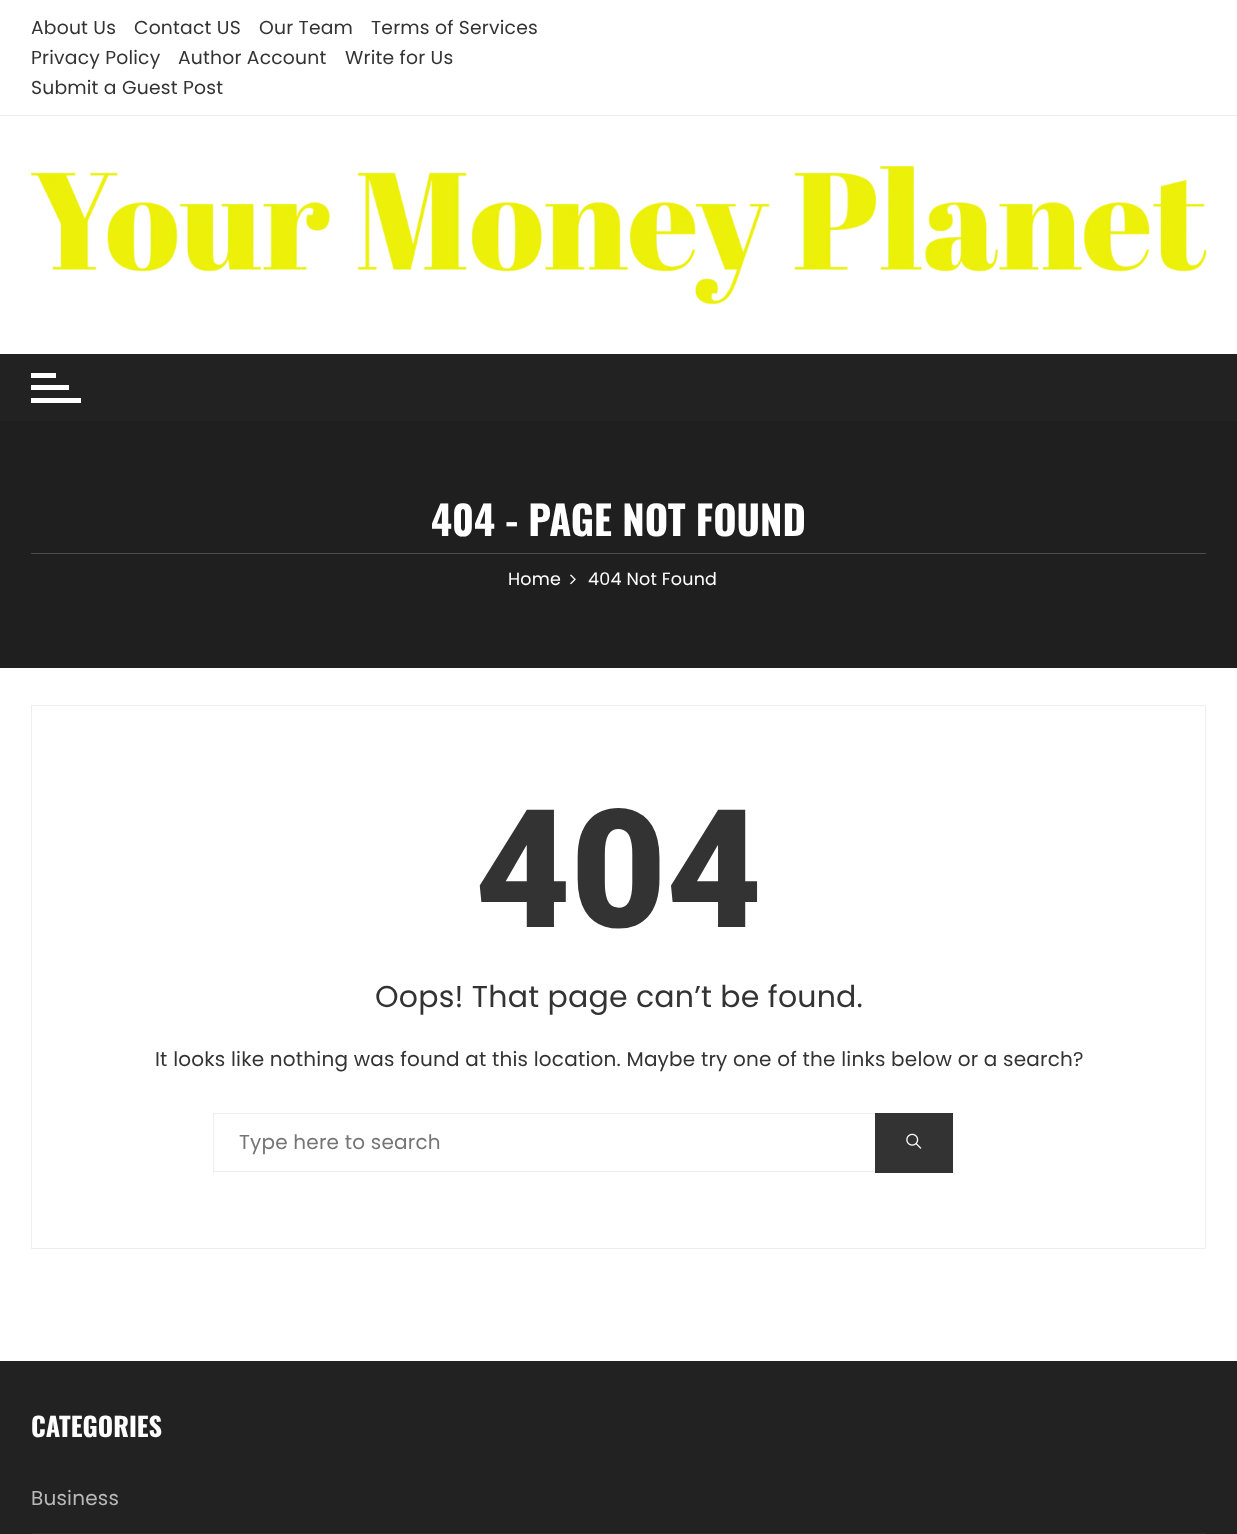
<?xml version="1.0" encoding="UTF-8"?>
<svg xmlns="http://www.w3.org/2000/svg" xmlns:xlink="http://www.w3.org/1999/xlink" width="1237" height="1534">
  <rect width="100%" height="100%" fill="#ffffff" />
  <rect y="115" width="1237" height="1" fill="#eeeeee" />
  <image x="31" y="166" width="1176" height="138" xlink:href="image1.png" />
  <rect y="354" width="1237" height="67" fill="#222222" />
  <rect x="31" y="373" width="25" height="5" fill="#ffffff" />
  <rect x="31" y="385" width="38" height="5" fill="#ffffff" />
  <rect x="31" y="398" width="50" height="5" fill="#ffffff" />
  <rect y="421" width="1237" height="247" fill="#1f1f1f" />
  <rect x="31" y="553" width="1175" height="1" fill="#4c4c4c" />
  <image x="570" y="574" width="6" height="11" xlink:href="image2.png" />
  <rect x="31.5" y="705.5" width="1174" height="543" fill="none" stroke="#eeeeee" />
  <rect x="213" y="1113" width="662" height="1" fill="#eeeeee" />
  <rect x="213" y="1171" width="662" height="1" fill="#eeeeee" />
  <rect x="213" y="1113" width="1" height="60" fill="#eeeeee" />
  <rect x="875" y="1113" width="78" height="60" fill="#333333" />
  <image x="906" y="1133" width="16" height="16" xlink:href="image3.png" />
  <rect y="1361" width="1237" height="173" fill="#222222" />
  <rect x="31" y="1533" width="1175" height="1" fill="#2f2f2f" />
  <text x="31" y="34" style="font-family: Poppins; font-size: 18.75px; letter-spacing: 0.2px; fill: #333333">About Us</text>
  <text x="134" y="34" style="font-family: Poppins; font-size: 18.75px; letter-spacing: 0.2px; fill: #333333">Contact US</text>
  <text x="259" y="34" style="font-family: Poppins; font-size: 18.75px; letter-spacing: 0.2px; fill: #333333">Our Team</text>
  <text x="371" y="34" style="font-family: Poppins; font-size: 18.75px; letter-spacing: 0.2px; fill: #333333">Terms of Services</text>
  <text x="31" y="64" style="font-family: Poppins; font-size: 18.75px; letter-spacing: 0.2px; fill: #333333">Privacy Policy</text>
  <text x="178" y="64" style="font-family: Poppins; font-size: 18.75px; letter-spacing: 0.2px; fill: #333333">Author Account</text>
  <text x="345" y="64" style="font-family: Poppins; font-size: 18.75px; letter-spacing: 0.2px; fill: #333333">Write for Us</text>
  <text x="31" y="94" style="font-family: Poppins; font-size: 18.75px; letter-spacing: 0.2px; fill: #333333">Submit a Guest Post</text>
  <text x="431" y="536" style="font-family: Oswald; font-size: 40px; font-weight: bold; fill: #ffffff">404 - PAGE NOT FOUND</text>
  <text x="508" y="585" style="font-family: Poppins; font-size: 17.5px; letter-spacing: 0.2px; fill: #ffffff">Home</text>
  <text x="588" y="585" style="font-family: Poppins; font-size: 17.5px; letter-spacing: 0.2px; fill: #ffffff">404 Not Found</text>
  <text x="475" y="927" style="font-family: Roboto; font-size: 165px; font-weight: 900; fill: #333333">404</text>
  <text x="375" y="1007" style="font-family: Poppins; font-size: 30px; letter-spacing: 0.2px; fill: #333333">Oops! That page can’t be found.</text>
  <text x="155" y="1066" style="font-family: Poppins; font-size: 20px; letter-spacing: 0.2px; fill: #333333">It looks like nothing was found at this location. Maybe try one of the links below or a search?</text>
  <text x="239" y="1149" style="font-family: Poppins; font-size: 20px; letter-spacing: 0.2px; fill: #757575">Type here to search</text>
  <text x="31" y="1437" style="font-family: Oswald; font-size: 26.25px; font-weight: bold; fill: #ffffff">CATEGORIES</text>
  <text x="31" y="1505" style="font-family: Poppins; font-size: 20px; letter-spacing: 0.2px; fill: #b9b9b9">Business</text>
</svg>
